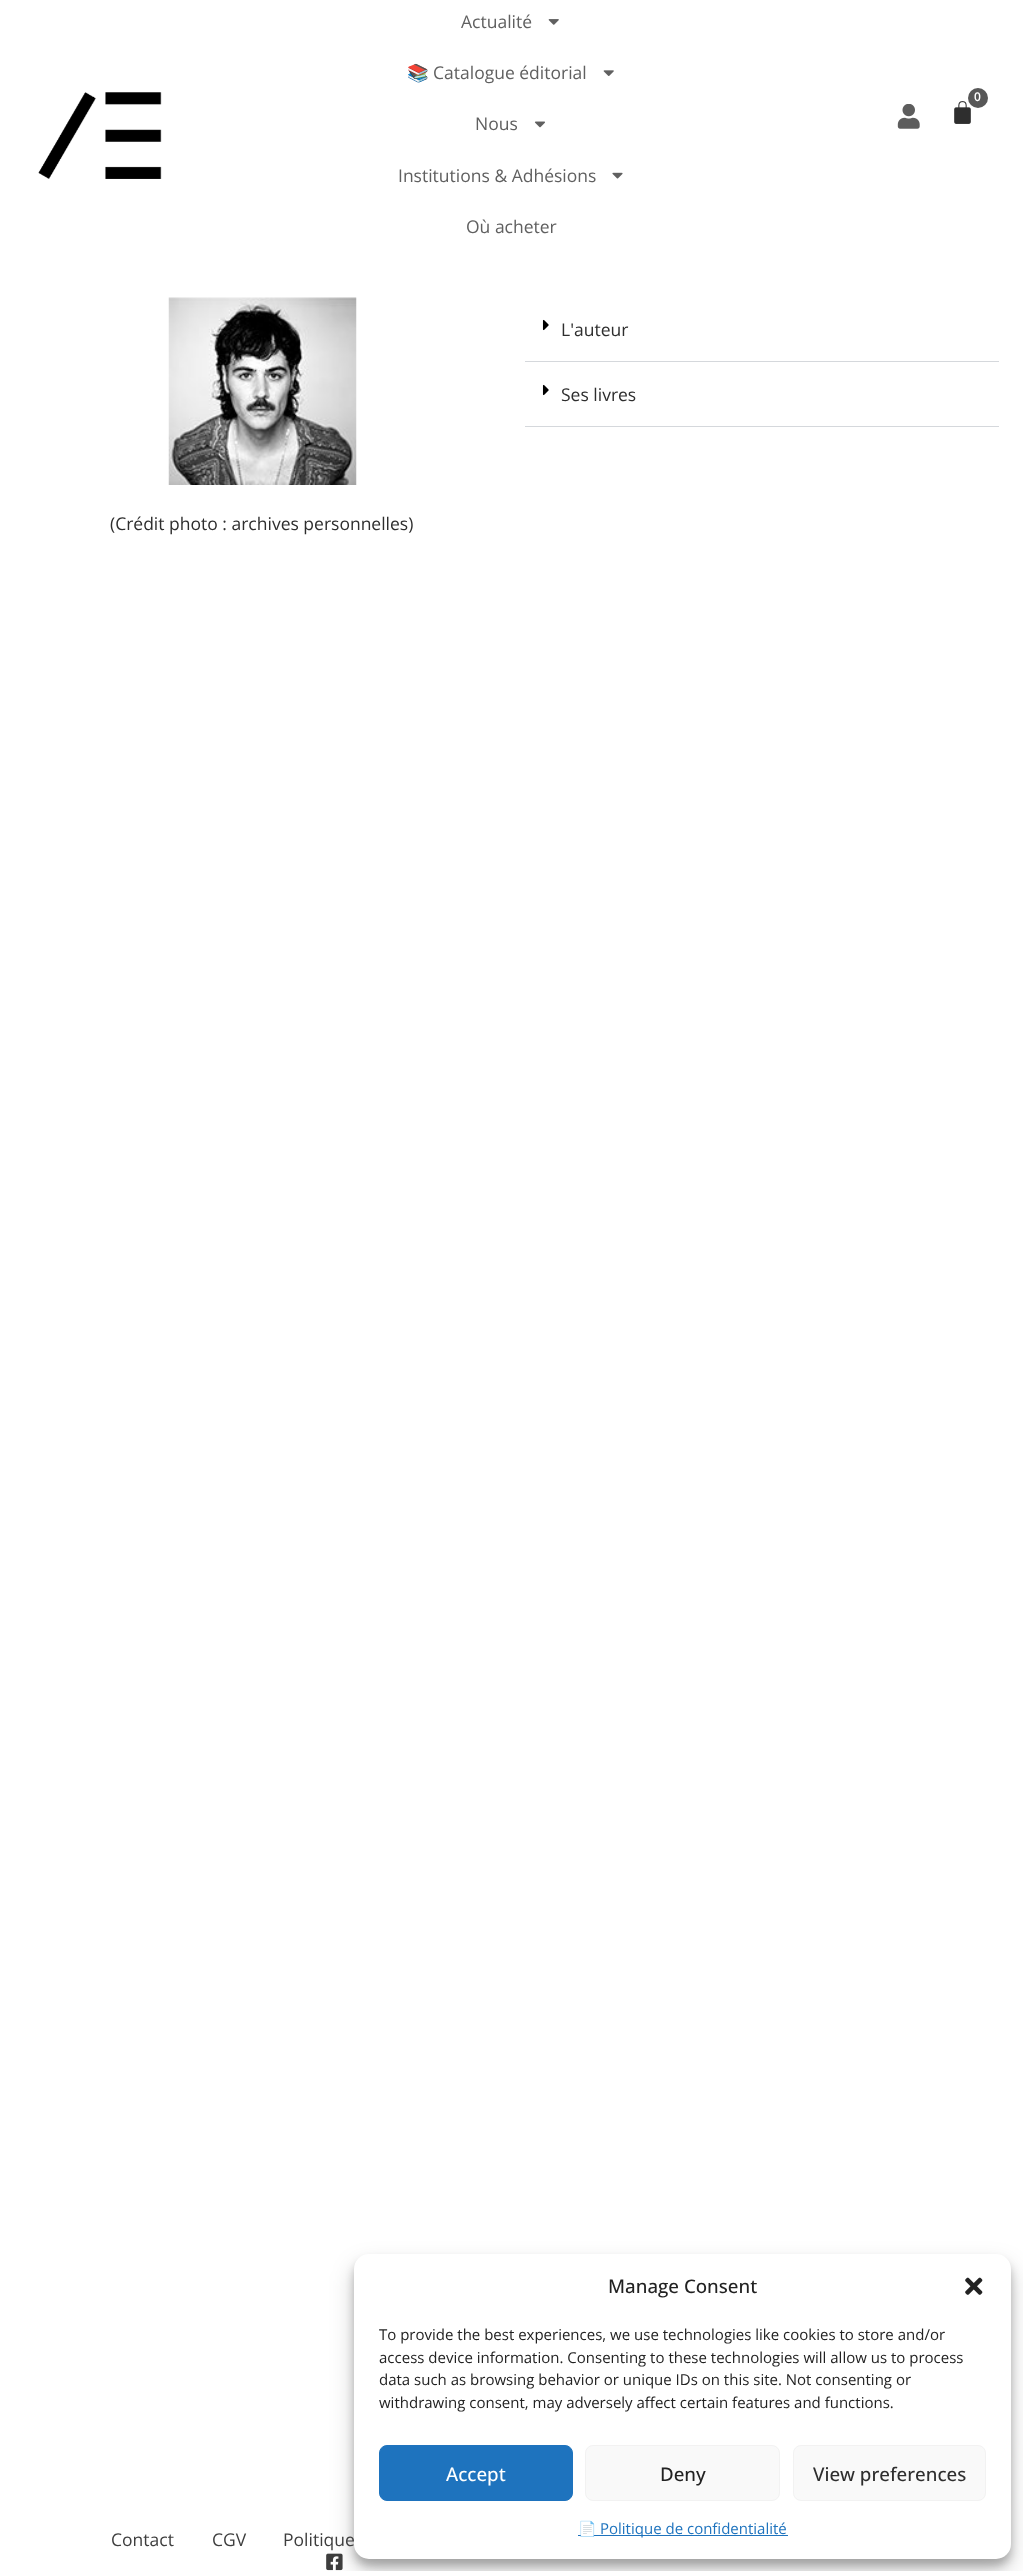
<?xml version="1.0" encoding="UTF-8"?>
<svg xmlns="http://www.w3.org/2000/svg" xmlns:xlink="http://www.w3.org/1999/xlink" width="1023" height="2571">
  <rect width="100%" height="100%" fill="#ffffff" />
  <image x="38" y="92" width="124" height="87" xlink:href="image1.png" />
  <image x="548" y="19" width="11" height="6" xlink:href="image2.png" />
  <image x="603" y="70" width="11" height="6" xlink:href="image3.png" />
  <image x="534" y="121" width="11" height="7" xlink:href="image4.png" />
  <image x="612" y="172" width="11" height="7" xlink:href="image5.png" />
  <image x="954" y="101" width="17" height="23" xlink:href="image6.png" />
  <circle cx="978" cy="98" r="10" fill="#575757" />
  <image x="897" y="104" width="23" height="25" xlink:href="image7.png" />
  <rect x="525" y="361" width="474" height="1" fill="#d5d8dc" />
  <image x="542" y="319" width="7" height="12" xlink:href="image8.png" />
  <rect x="525" y="426" width="474" height="1" fill="#d5d8dc" />
  <image x="542" y="384" width="7" height="12" xlink:href="image8.png" />
  <image x="168" y="297" width="189" height="188" xlink:href="image9.png" />
  <image x="326" y="2553" width="17" height="18" xlink:href="image11.png" />
  <rect x="354" y="2261" width="657" height="305" rx="15" fill="#000000" fill-opacity="0.23" filter="blur(4px)" />
  <rect x="354" y="2266" width="657" height="305" rx="15" fill="#000000" fill-opacity="0.19" filter="blur(12.5px)" />
  <text x="461" y="28" style="font-family: Open Sans; font-size: 17.5px; fill: #606060">Actualité</text>
  <text x="407" y="79" style="font-family: Noto Color Emoji; font-size: 17.5px; fill: #606060">📚</text>
  <text x="433" y="79" style="font-family: Open Sans; font-size: 17.5px; fill: #606060">Catalogue éditorial</text>
  <text x="475" y="130" style="font-family: Open Sans; font-size: 17.5px; fill: #606060">Nous</text>
  <text x="398" y="182" style="font-family: Open Sans; font-size: 17.5px; fill: #606060">Institutions &amp; Adhésions</text>
  <text x="466" y="233" style="font-family: Open Sans; font-size: 17.5px; fill: #606060">Où acheter</text>
  <text x="974" y="101" style="font-family: Open Sans; font-size: 12px; font-weight: 600; fill: #ffffff">0</text>
  <text x="561" y="336" style="font-family: Open Sans; font-size: 17.5px; fill: #2e2e2e">L'auteur</text>
  <text x="561" y="401" style="font-family: Open Sans; font-size: 17.5px; fill: #2e2e2e">Ses livres</text>
  <text x="110" y="530" style="font-family: Open Sans; font-size: 17.5px; fill: #2e2e2e">(Crédit photo : archives personnelles)</text>
  <text x="111" y="2546" style="font-family: Open Sans; font-size: 17.5px; fill: #3e3e3e">Contact</text>
  <text x="212" y="2546" style="font-family: Open Sans; font-size: 17.5px; fill: #3e3e3e">CGV</text>
  <text x="283" y="2546" style="font-family: Open Sans; font-size: 17.5px; fill: #3e3e3e">Politique</text>
  <rect x="354" y="2254" width="657" height="305" rx="15" fill="#ffffff" />
  <text x="379" y="2408" style="font-family: Open Sans; font-size: 15px; fill: #222222">withdrawing consent, may adversely affect certain features and functions.</text>
  <text x="379" y="2385" style="font-family: Open Sans; font-size: 15px; fill: #222222">data such as browsing behavior or unique IDs on this site. Not consenting or</text>
  <text x="379" y="2363" style="font-family: Open Sans; font-size: 15px; fill: #222222">access device information. Consenting to these technologies will allow us to process</text>
  <text x="379" y="2340" style="font-family: Open Sans; font-size: 15px; fill: #222222">To provide the best experiences, we use technologies like cookies to store and/or</text>
  <image x="965" y="2277" width="18" height="18" xlink:href="image10.png" />
  <rect x="578" y="2535" width="210" height="1" fill="#1e73be" />
  <text x="600" y="2534" style="font-family: Open Sans; font-size: 15px; fill: #1e73be">Politique de confidentialité</text>
  <text x="578" y="2534" style="font-family: Noto Color Emoji; font-size: 15px; fill: #1e73be">📄</text>
  <rect x="793.5" y="2445.5" width="192" height="55" rx="7.5" fill="#f9f9f9" stroke="#f2f2f2" />
  <text x="813" y="2481" style="font-family: Open Sans; font-size: 18.75px; font-weight: 500; fill: #2e2e2e">View preferences</text>
  <rect x="585.5" y="2445.5" width="194" height="55" rx="7.5" fill="#f9f9f9" stroke="#f2f2f2" />
  <text x="660" y="2481" style="font-family: Open Sans; font-size: 18.75px; font-weight: 500; fill: #222222">Deny</text>
  <rect x="379.5" y="2445.5" width="193" height="55" rx="7.5" fill="#1e73be" stroke="#1e73be" />
  <text x="446" y="2481" style="font-family: Open Sans; font-size: 18.75px; font-weight: 500; fill: #ffffff">Accept</text>
  <text x="608" y="2293" style="font-family: Open Sans; font-size: 18.75px; font-weight: 500; fill: #222222">Manage Consent</text>
</svg>
